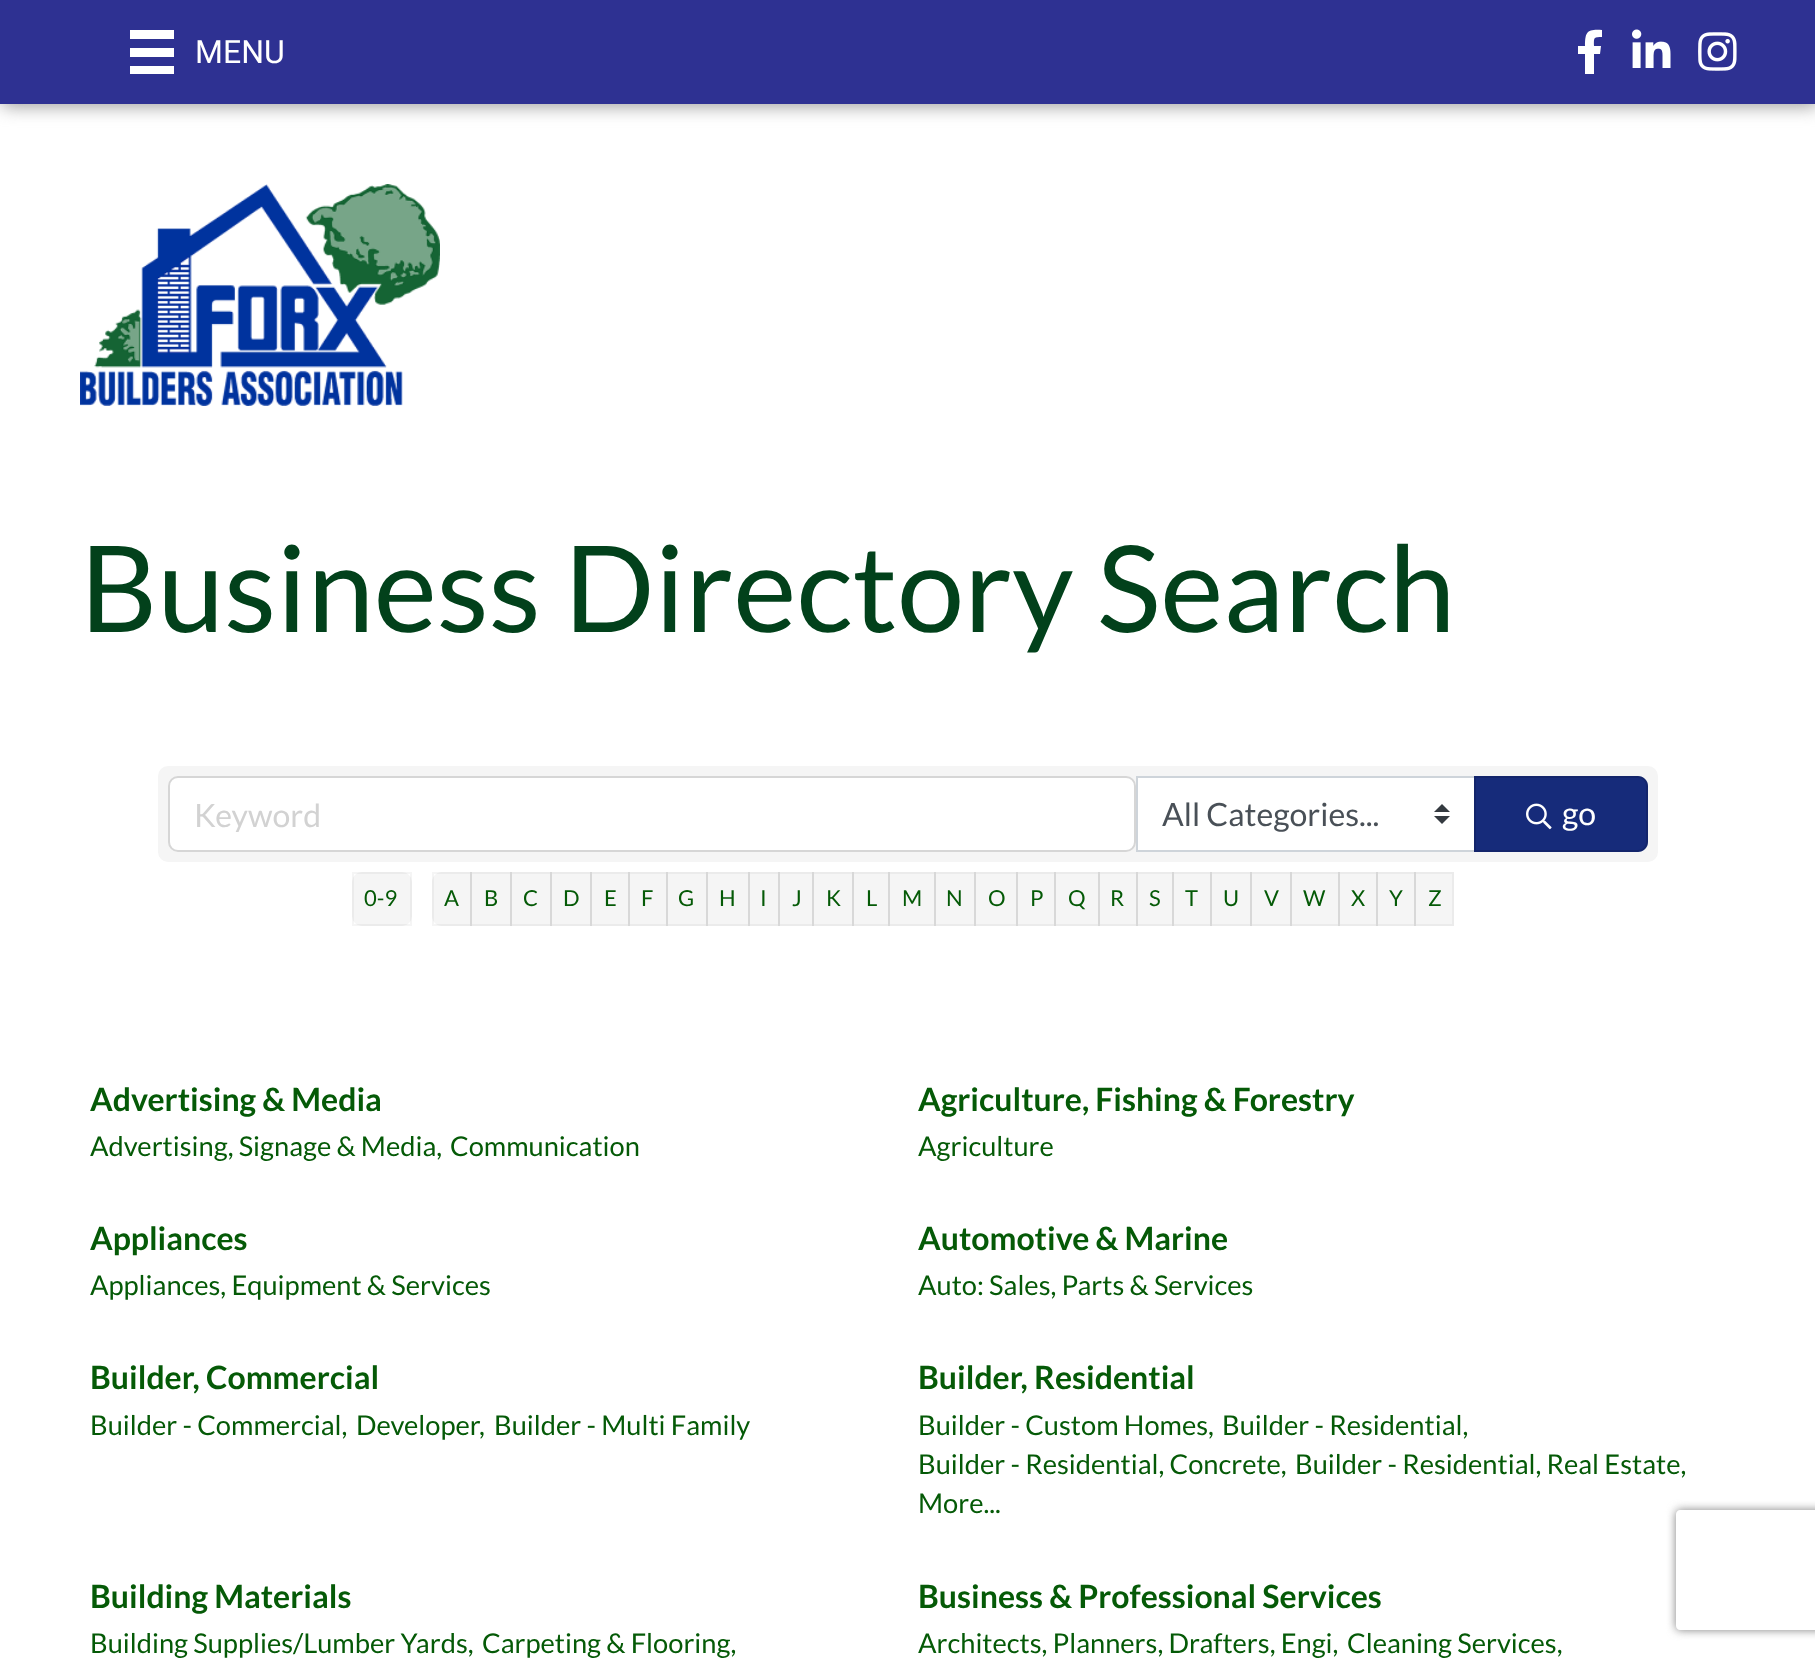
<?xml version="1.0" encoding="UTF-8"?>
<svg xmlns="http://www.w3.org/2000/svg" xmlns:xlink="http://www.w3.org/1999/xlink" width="1815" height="1658">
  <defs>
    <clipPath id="clip1"><path d="M 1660 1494 h 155 v 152 h -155 z m 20 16 h 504 c 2 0 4 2 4 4 v 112 c 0 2 -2 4 -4 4 h -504 c -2 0 -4 -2 -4 -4 v -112 c 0 -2 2 -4 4 -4 z" clip-rule="evenodd" /></clipPath>
    <clipPath id="clip2"><rect x="194" y="794" width="916" height="38" /></clipPath>
  </defs>
  <rect width="100%" height="100%" fill="#ffffff" />
  <rect x="2" y="2" width="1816" height="104" fill="#999999" filter="blur(9px)" />
  <rect width="1815" height="104" fill="#2e3192" />
  <rect x="130" y="30" width="44" height="9" fill="#ffffff" />
  <rect x="130" y="48" width="44" height="9" fill="#ffffff" />
  <rect x="130" y="66" width="44" height="8" fill="#ffffff" />
  <path d="M 1600 54 h -6 v 20 h -9 v -20 h -7 v -8 h 7 c 0 -14 2 -17 17 -16 v 7 c -9 0 -8 1 -8 9 h 7 z" fill="#ffffff" />
  <image x="1632" y="29" width="39" height="39" xlink:href="image1.png" />
  <image x="1698" y="32" width="39" height="39" xlink:href="image2.png" />
  <image x="80" y="184" width="360" height="222" xlink:href="image3.png" />
  <rect x="158" y="766" width="1500" height="96" rx="10" fill="#f5f5f5" />
  <rect x="169" y="777" width="966" height="74" rx="9" fill="#ffffff" stroke="#d6d6d6" stroke-width="2" />
  <rect x="1138" y="778" width="336" height="72" fill="#ffffff" />
  <path d="M 1442 804 l -8 8 h 16 z m 0 20 l -8 -8 h 16 z" fill="#343a40" />
  <rect x="1137" y="777" width="338" height="74" fill="none" stroke="#ced4da" stroke-width="2" />
  <path d="M 1474 776 h 164 c 5.5 0 10 4.5 10 10 v 56 c 0 5.5 -4.5 10 -10 10 h -164 z" fill="#162b7a" />
  <path d="M 1475 777 h 163 c 5 0 9 4 9 9 v 56 c 0 5 -4 9 -9 9 h -163 z" fill="none" stroke="#000000" stroke-opacity="0.12" stroke-width="2" />
  <image x="1526" y="803" width="26" height="27" xlink:href="image4.png" />
  <rect x="352" y="872" width="60" height="54" rx="10" fill="#f5f5f5" />
  <rect x="353" y="873" width="58" height="52" fill="none" stroke="#000000" stroke-opacity="0.04" stroke-width="2" />
  <path d="M 442 872 h 30 v 54 h -30 c -5.5 0 -10 -4.5 -10 -10 v -34 c 0 -5.5 4.5 -10 10 -10 z" fill="#f5f5f5" />
  <rect x="433" y="873" width="38" height="52" fill="none" stroke="#000000" stroke-opacity="0.04" stroke-width="2" />
  <rect x="470" y="872" width="42" height="54" fill="#000000" fill-opacity="0.04" />
  <rect x="471" y="873" width="40" height="52" fill="none" stroke="#000000" stroke-opacity="0.04" stroke-width="2" />
  <rect x="510" y="872" width="42" height="54" fill="#000000" fill-opacity="0.04" />
  <rect x="511" y="873" width="40" height="52" fill="none" stroke="#000000" stroke-opacity="0.04" stroke-width="2" />
  <rect x="550" y="872" width="42" height="54" fill="#000000" fill-opacity="0.04" />
  <rect x="551" y="873" width="40" height="52" fill="none" stroke="#000000" stroke-opacity="0.04" stroke-width="2" />
  <rect x="590" y="872" width="40" height="54" fill="#000000" fill-opacity="0.04" />
  <rect x="591" y="873" width="38" height="52" fill="none" stroke="#000000" stroke-opacity="0.04" stroke-width="2" />
  <rect x="628" y="872" width="40" height="54" fill="#000000" fill-opacity="0.04" />
  <rect x="629" y="873" width="38" height="52" fill="none" stroke="#000000" stroke-opacity="0.04" stroke-width="2" />
  <rect x="666" y="872" width="42" height="54" fill="#000000" fill-opacity="0.04" />
  <rect x="667" y="873" width="40" height="52" fill="none" stroke="#000000" stroke-opacity="0.04" stroke-width="2" />
  <rect x="706" y="872" width="44" height="54" fill="#000000" fill-opacity="0.04" />
  <rect x="707" y="873" width="42" height="52" fill="none" stroke="#000000" stroke-opacity="0.04" stroke-width="2" />
  <rect x="748" y="872" width="32" height="54" fill="#000000" fill-opacity="0.04" />
  <rect x="749" y="873" width="30" height="52" fill="none" stroke="#000000" stroke-opacity="0.04" stroke-width="2" />
  <rect x="778" y="872" width="36" height="54" fill="#000000" fill-opacity="0.04" />
  <rect x="779" y="873" width="34" height="52" fill="none" stroke="#000000" stroke-opacity="0.04" stroke-width="2" />
  <rect x="812" y="872" width="42" height="54" fill="#000000" fill-opacity="0.04" />
  <rect x="813" y="873" width="40" height="52" fill="none" stroke="#000000" stroke-opacity="0.04" stroke-width="2" />
  <rect x="852" y="872" width="38" height="54" fill="#000000" fill-opacity="0.04" />
  <rect x="853" y="873" width="36" height="52" fill="none" stroke="#000000" stroke-opacity="0.04" stroke-width="2" />
  <rect x="888" y="872" width="48" height="54" fill="#000000" fill-opacity="0.04" />
  <rect x="889" y="873" width="46" height="52" fill="none" stroke="#000000" stroke-opacity="0.04" stroke-width="2" />
  <rect x="934" y="872" width="42" height="54" fill="#000000" fill-opacity="0.04" />
  <rect x="935" y="873" width="40" height="52" fill="none" stroke="#000000" stroke-opacity="0.04" stroke-width="2" />
  <rect x="974" y="872" width="44" height="54" fill="#000000" fill-opacity="0.04" />
  <rect x="975" y="873" width="42" height="52" fill="none" stroke="#000000" stroke-opacity="0.04" stroke-width="2" />
  <rect x="1016" y="872" width="40" height="54" fill="#000000" fill-opacity="0.04" />
  <rect x="1017" y="873" width="38" height="52" fill="none" stroke="#000000" stroke-opacity="0.04" stroke-width="2" />
  <rect x="1054" y="872" width="46" height="54" fill="#000000" fill-opacity="0.04" />
  <rect x="1055" y="873" width="44" height="52" fill="none" stroke="#000000" stroke-opacity="0.04" stroke-width="2" />
  <rect x="1098" y="872" width="40" height="54" fill="#000000" fill-opacity="0.04" />
  <rect x="1099" y="873" width="38" height="52" fill="none" stroke="#000000" stroke-opacity="0.04" stroke-width="2" />
  <rect x="1136" y="872" width="38" height="54" fill="#000000" fill-opacity="0.04" />
  <rect x="1137" y="873" width="36" height="52" fill="none" stroke="#000000" stroke-opacity="0.04" stroke-width="2" />
  <rect x="1172" y="872" width="40" height="54" fill="#000000" fill-opacity="0.04" />
  <rect x="1173" y="873" width="38" height="52" fill="none" stroke="#000000" stroke-opacity="0.04" stroke-width="2" />
  <rect x="1210" y="872" width="42" height="54" fill="#000000" fill-opacity="0.04" />
  <rect x="1211" y="873" width="40" height="52" fill="none" stroke="#000000" stroke-opacity="0.04" stroke-width="2" />
  <rect x="1250" y="872" width="42" height="54" fill="#000000" fill-opacity="0.04" />
  <rect x="1251" y="873" width="40" height="52" fill="none" stroke="#000000" stroke-opacity="0.04" stroke-width="2" />
  <rect x="1290" y="872" width="50" height="54" fill="#000000" fill-opacity="0.04" />
  <rect x="1291" y="873" width="48" height="52" fill="none" stroke="#000000" stroke-opacity="0.04" stroke-width="2" />
  <rect x="1338" y="872" width="40" height="54" fill="#000000" fill-opacity="0.04" />
  <rect x="1339" y="873" width="38" height="52" fill="none" stroke="#000000" stroke-opacity="0.04" stroke-width="2" />
  <rect x="1376" y="872" width="40" height="54" fill="#000000" fill-opacity="0.04" />
  <rect x="1377" y="873" width="38" height="52" fill="none" stroke="#000000" stroke-opacity="0.04" stroke-width="2" />
  <rect x="1414" y="872" width="40" height="54" fill="#000000" fill-opacity="0.04" />
  <rect x="1415" y="873" width="38" height="52" fill="none" stroke="#000000" stroke-opacity="0.04" stroke-width="2" />
  <g clip-path="url(#clip1)">
    <rect x="1676" y="1510" width="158" height="120" rx="4" fill="#808080" filter="blur(5px)" />
  </g>
  <text x="195" y="63" style="font-family: Roboto; font-size: 32px; fill: #ffffff">MENU</text>
  <text x="80" y="632" style="font-family: Lato; font-size: 120px; fill: #02411b">Business Directory Search</text>
  <g clip-path="url(#clip2)">
    <text x="194" y="827" style="font-family: Lato; font-size: 32px; fill: #d2d2d2">Keyword</text>
  </g>
  <text x="1162" y="826" style="font-family: Lato; font-size: 32px; fill: #495057">All Categories...</text>
  <text x="1562" y="825" style="font-family: Lato; font-size: 32px; fill: #ffffff">go</text>
  <text x="364" y="906" style="font-family: Lato; font-size: 22px; fill: #055a07">0-9</text>
  <text x="444" y="906" style="font-family: Lato; font-size: 22px; fill: #055a07">A</text>
  <text x="484" y="906" style="font-family: Lato; font-size: 22px; fill: #055a07">B</text>
  <text x="523" y="906" style="font-family: Lato; font-size: 22px; fill: #055a07">C</text>
  <text x="563" y="906" style="font-family: Lato; font-size: 22px; fill: #055a07">D</text>
  <text x="604" y="906" style="font-family: Lato; font-size: 22px; fill: #055a07">E</text>
  <text x="641" y="906" style="font-family: Lato; font-size: 22px; fill: #055a07">F</text>
  <text x="678" y="906" style="font-family: Lato; font-size: 22px; fill: #055a07">G</text>
  <text x="719" y="906" style="font-family: Lato; font-size: 22px; fill: #055a07">H</text>
  <text x="760" y="906" style="font-family: Lato; font-size: 22px; fill: #055a07">I</text>
  <text x="792" y="906" style="font-family: Lato; font-size: 22px; fill: #055a07">J</text>
  <text x="826" y="906" style="font-family: Lato; font-size: 22px; fill: #055a07">K</text>
  <text x="866" y="906" style="font-family: Lato; font-size: 22px; fill: #055a07">L</text>
  <text x="902" y="906" style="font-family: Lato; font-size: 22px; fill: #055a07">M</text>
  <text x="946" y="906" style="font-family: Lato; font-size: 22px; fill: #055a07">N</text>
  <text x="988" y="906" style="font-family: Lato; font-size: 22px; fill: #055a07">O</text>
  <text x="1030" y="906" style="font-family: Lato; font-size: 22px; fill: #055a07">P</text>
  <text x="1068" y="906" style="font-family: Lato; font-size: 22px; fill: #055a07">Q</text>
  <text x="1110" y="906" style="font-family: Lato; font-size: 22px; fill: #055a07">R</text>
  <text x="1149" y="906" style="font-family: Lato; font-size: 22px; fill: #055a07">S</text>
  <text x="1185" y="906" style="font-family: Lato; font-size: 22px; fill: #055a07">T</text>
  <text x="1223" y="906" style="font-family: Lato; font-size: 22px; fill: #055a07">U</text>
  <text x="1264" y="906" style="font-family: Lato; font-size: 22px; fill: #055a07">V</text>
  <text x="1303" y="906" style="font-family: Lato; font-size: 22px; fill: #055a07">W</text>
  <text x="1351" y="906" style="font-family: Lato; font-size: 22px; fill: #055a07">X</text>
  <text x="1389" y="906" style="font-family: Lato; font-size: 22px; fill: #055a07">Y</text>
  <text x="1428" y="906" style="font-family: Lato; font-size: 22px; fill: #055a07">Z</text>
  <text x="90" y="1111" style="font-family: Lato; font-size: 32px; font-weight: bold; fill: #055a07">Advertising &amp; Media</text>
  <text x="90" y="1156" style="font-family: Lato; font-size: 27.25px; fill: #055a07">Advertising, Signage &amp; Media,</text>
  <text x="450" y="1156" style="font-family: Lato; font-size: 27.25px; fill: #055a07">Communication</text>
  <text x="918" y="1111" style="font-family: Lato; font-size: 32px; font-weight: bold; fill: #055a07">Agriculture, Fishing &amp; Forestry</text>
  <text x="918" y="1156" style="font-family: Lato; font-size: 27.25px; fill: #055a07">Agriculture</text>
  <text x="90" y="1250" style="font-family: Lato; font-size: 32px; font-weight: bold; fill: #055a07">Appliances</text>
  <text x="90" y="1295" style="font-family: Lato; font-size: 27.25px; fill: #055a07">Appliances, Equipment &amp; Services</text>
  <text x="918" y="1250" style="font-family: Lato; font-size: 32px; font-weight: bold; fill: #055a07">Automotive &amp; Marine</text>
  <text x="918" y="1295" style="font-family: Lato; font-size: 27.25px; fill: #055a07">Auto: Sales, Parts &amp; Services</text>
  <text x="90" y="1389" style="font-family: Lato; font-size: 32px; font-weight: bold; fill: #055a07">Builder, Commercial</text>
  <text x="90" y="1435" style="font-family: Lato; font-size: 27.25px; fill: #055a07">Builder - Commercial,</text>
  <text x="356" y="1435" style="font-family: Lato; font-size: 27.25px; fill: #055a07">Developer,</text>
  <text x="494" y="1435" style="font-family: Lato; font-size: 27.25px; fill: #055a07">Builder - Multi Family</text>
  <text x="918" y="1389" style="font-family: Lato; font-size: 32px; font-weight: bold; fill: #055a07">Builder, Residential</text>
  <text x="918" y="1435" style="font-family: Lato; font-size: 27.25px; fill: #055a07">Builder - Custom Homes,</text>
  <text x="1222" y="1435" style="font-family: Lato; font-size: 27.25px; fill: #055a07">Builder - Residential,</text>
  <text x="918" y="1474" style="font-family: Lato; font-size: 27.25px; fill: #055a07">Builder - Residential, Concrete,</text>
  <text x="1295" y="1474" style="font-family: Lato; font-size: 27.25px; fill: #055a07">Builder - Residential, Real Estate,</text>
  <text x="918" y="1513" style="font-family: Lato; font-size: 27.25px; fill: #055a07">More...</text>
  <text x="90" y="1608" style="font-family: Lato; font-size: 32px; font-weight: bold; fill: #055a07">Building Materials</text>
  <text x="90" y="1653" style="font-family: Lato; font-size: 27.25px; fill: #055a07">Building Supplies/Lumber Yards,</text>
  <text x="482" y="1653" style="font-family: Lato; font-size: 27.25px; fill: #055a07">Carpeting &amp; Flooring,</text>
  <text x="918" y="1608" style="font-family: Lato; font-size: 32px; font-weight: bold; fill: #055a07">Business &amp; Professional Services</text>
  <text x="918" y="1653" style="font-family: Lato; font-size: 27.25px; fill: #055a07">Architects, Planners, Drafters, Engi,</text>
  <text x="1347" y="1653" style="font-family: Lato; font-size: 27.25px; fill: #055a07">Cleaning Services,</text>
</svg>
